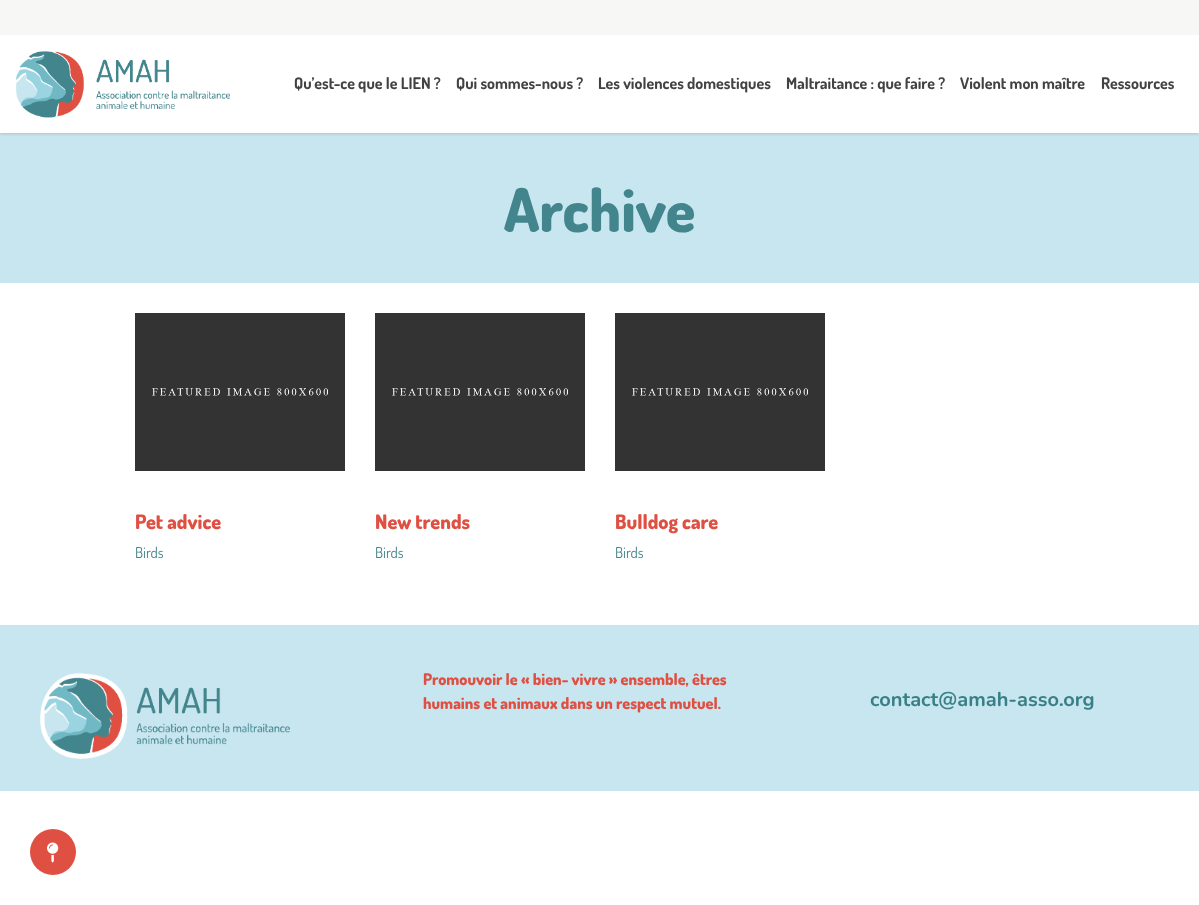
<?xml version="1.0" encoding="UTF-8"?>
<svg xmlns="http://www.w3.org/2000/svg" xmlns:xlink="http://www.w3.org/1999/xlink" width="1199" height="905">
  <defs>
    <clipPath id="clip1"><rect x="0" y="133" width="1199" height="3" /></clipPath>
  </defs>
  <rect width="100%" height="100%" fill="#ffffff" />
  <rect y="133" width="1199" height="150" fill="#c8e6f0" />
  <g clip-path="url(#clip1)">
    <rect y="36" width="1199" height="98" fill="#000000" fill-opacity="0.15" filter="blur(1.5px)" />
  </g>
  <rect width="1199" height="35" fill="#f7f7f5" />
  <image x="15" y="51" width="215" height="67" xlink:href="image1.png" />
  <image x="135" y="313" width="210" height="158" xlink:href="image2.png" />
  <image x="375" y="313" width="210" height="158" xlink:href="image3.png" />
  <image x="615" y="313" width="210" height="158" xlink:href="image3.png" />
  <rect y="625" width="1199" height="166" fill="#c8e6f0" />
  <image x="40" y="673" width="250" height="86" xlink:href="image4.png" />
  <circle cx="53" cy="852" r="23" fill="#df5043" />
  <image x="47" y="842" width="12" height="21" xlink:href="image5.png" />
  <text x="294" y="89" style="font-family: Dosis; font-size: 16px; font-weight: bold; fill: #424242">Qu’est-ce que le LIEN ?</text>
  <text x="456" y="89" style="font-family: Dosis; font-size: 16px; font-weight: bold; fill: #424242">Qui sommes-nous ?</text>
  <text x="598" y="89" style="font-family: Dosis; font-size: 16px; font-weight: bold; fill: #424242">Les violences domestiques</text>
  <text x="786" y="89" style="font-family: Dosis; font-size: 16px; font-weight: bold; fill: #424242">Maltraitance : que faire ?</text>
  <text x="960" y="89" style="font-family: Dosis; font-size: 16px; font-weight: bold; fill: #424242">Violent mon maître</text>
  <text x="1101" y="89" style="font-family: Dosis; font-size: 16px; font-weight: bold; fill: #424242">Ressources</text>
  <text x="504" y="232" style="font-family: Dosis; font-size: 60px; font-weight: 800; fill: #43858c">Archive</text>
  <text x="135" y="529" style="font-family: Dosis; font-size: 20px; font-weight: 800; fill: #df5043">Pet advice</text>
  <text x="135" y="558" style="font-family: Dosis; font-size: 15px; fill: #43858c">Birds</text>
  <text x="375" y="529" style="font-family: Dosis; font-size: 20px; font-weight: 800; fill: #df5043">New trends</text>
  <text x="375" y="558" style="font-family: Dosis; font-size: 15px; fill: #43858c">Birds</text>
  <text x="615" y="529" style="font-family: Dosis; font-size: 20px; font-weight: 800; fill: #df5043">Bulldog care</text>
  <text x="615" y="558" style="font-family: Dosis; font-size: 15px; fill: #43858c">Birds</text>
  <text x="423" y="685" style="font-family: Dosis; font-size: 16px; font-weight: 800; fill: #df5043">Promouvoir le « bien- vivre » ensemble, êtres</text>
  <text x="423" y="709" style="font-family: Dosis; font-size: 16px; font-weight: 800; fill: #df5043">humains et animaux dans un respect mutuel.</text>
  <text x="870" y="706" style="font-family: Nunito; font-size: 20px; font-weight: bold; fill: #387f86">contact@amah-asso.org</text>
</svg>
